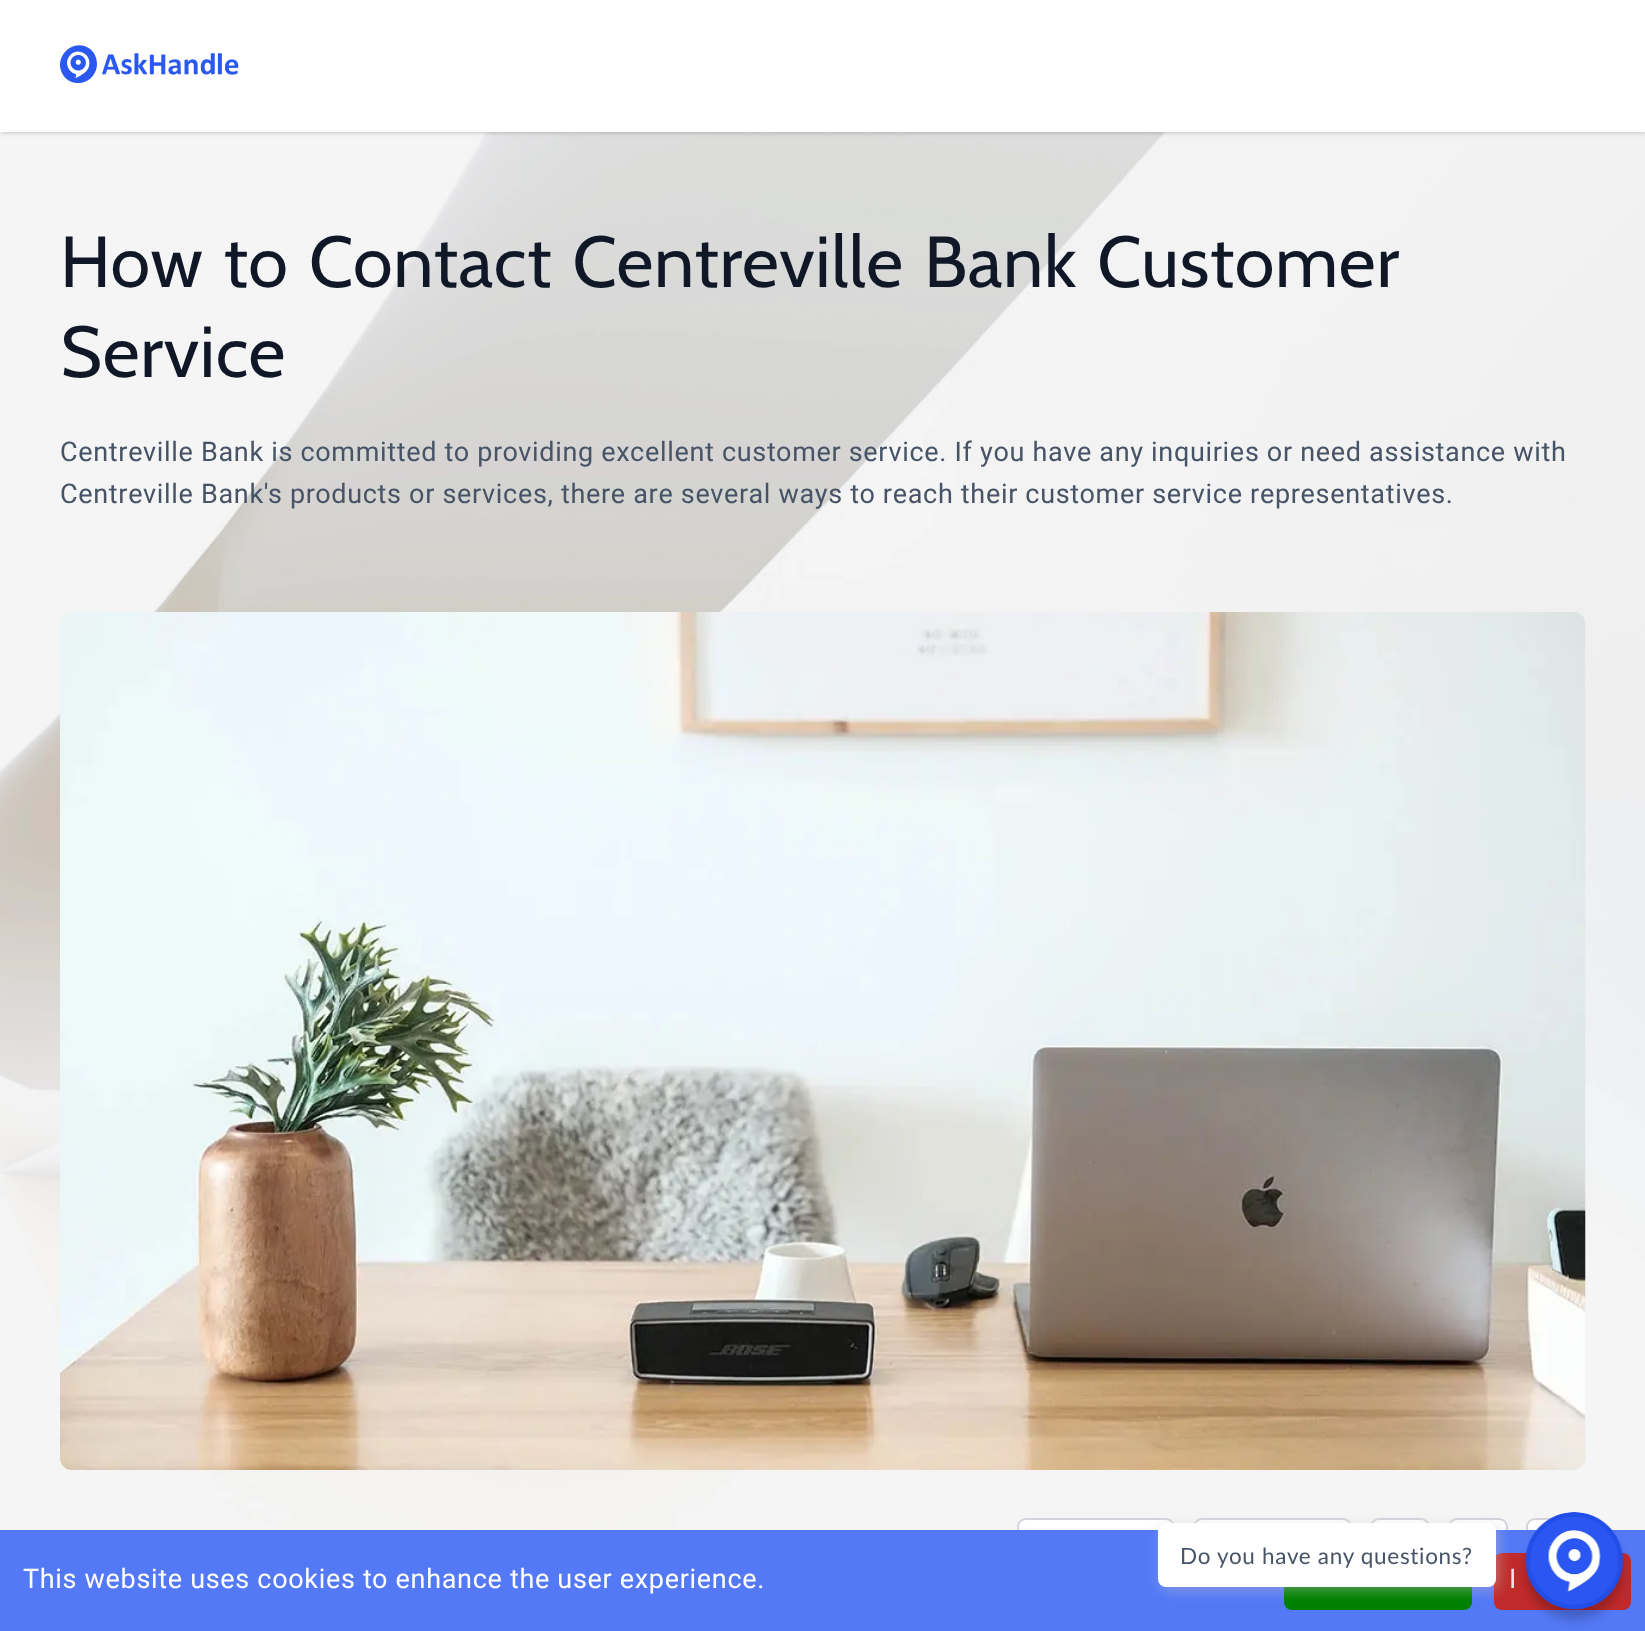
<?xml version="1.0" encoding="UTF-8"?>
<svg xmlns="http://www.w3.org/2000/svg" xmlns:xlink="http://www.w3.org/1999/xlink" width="1645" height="1631">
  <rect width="100%" height="100%" fill="#ffffff" />
  <image x="0" y="132" width="1645" height="1398" xlink:href="image2.png" />
  <rect x="2" y="3" width="1642" height="129" fill="#000000" fill-opacity="0.1" filter="blur(1.5px)" />
  <rect y="2" width="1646" height="132" fill="#000000" fill-opacity="0.1" filter="blur(2px)" />
  <rect width="1645" height="132" fill="#ffffff" />
  <image x="60" y="45" width="179" height="39" xlink:href="image1.png" />
  <image x="60" y="612" width="1526" height="858" xlink:href="image3.png" />
  <rect x="1018" y="1519" width="156" height="58" rx="8" fill="#ffffff" stroke="#d1d5db" stroke-width="2" />
  <rect x="1194" y="1519" width="157" height="58" rx="8" fill="#ffffff" stroke="#d1d5db" stroke-width="2" />
  <rect x="1371" y="1519" width="58" height="58" rx="8" fill="#ffffff" stroke="#d1d5db" stroke-width="2" />
  <rect x="1449" y="1519" width="58" height="58" rx="8" fill="#ffffff" stroke="#d1d5db" stroke-width="2" />
  <rect x="1527" y="1519" width="58" height="58" rx="8" fill="#ffffff" stroke="#d1d5db" stroke-width="2" />
  <rect y="1530" width="1645" height="101" fill="#5479f7" />
  <rect x="1284" y="1553" width="188" height="57" rx="8" fill="#008000" />
  <rect x="1494" y="1553" width="137" height="57" rx="8" fill="#c12a2a" />
  <rect x="1161" y="1526" width="338" height="64" rx="8" fill="#c5c5c5" fill-opacity="0.46" filter="blur(7px)" />
  <rect x="1158" y="1523" width="338" height="64" rx="8" fill="#ffffff" />
  <rect x="1526" y="1523" width="97" height="97" rx="48.5" fill="#000000" fill-opacity="0.2" filter="blur(5px)" />
  <image x="1525" y="1512" width="99" height="98" xlink:href="image4.png" />
  <text x="60" y="287" word-spacing="3.5" style="font-family: Cabin; font-size: 72px; letter-spacing: 0.68px; fill: #101828">How to Contact Centreville Bank Customer</text>
  <text x="60" y="377" style="font-family: Cabin; font-size: 72px; letter-spacing: 0.68px; fill: #101828">Service</text>
  <text x="60" y="461" style="font-family: Heebo; font-size: 27px; letter-spacing: 0.68px; fill: #475467">Centreville Bank is committed to providing excellent customer service. If you have any inquiries or need assistance with</text>
  <text x="60" y="503" style="font-family: Heebo; font-size: 27px; letter-spacing: 0.68px; fill: #475467">Centreville Bank's products or services, there are several ways to reach their customer service representatives.</text>
  <text x="23" y="1588" style="font-family: Heebo; font-size: 27px; letter-spacing: 0.68px; fill: #ffffff">This website uses cookies to enhance the user experience.</text>
  <text x="1509" y="1588" style="font-family: Heebo; font-size: 27px; letter-spacing: 0.68px; fill: #e5e5e5">I</text>
  <text x="1180" y="1564" style="font-family: Lato; font-size: 22.5px; letter-spacing: 0.68px; fill: #475467">Do you have any questions?</text>
</svg>
